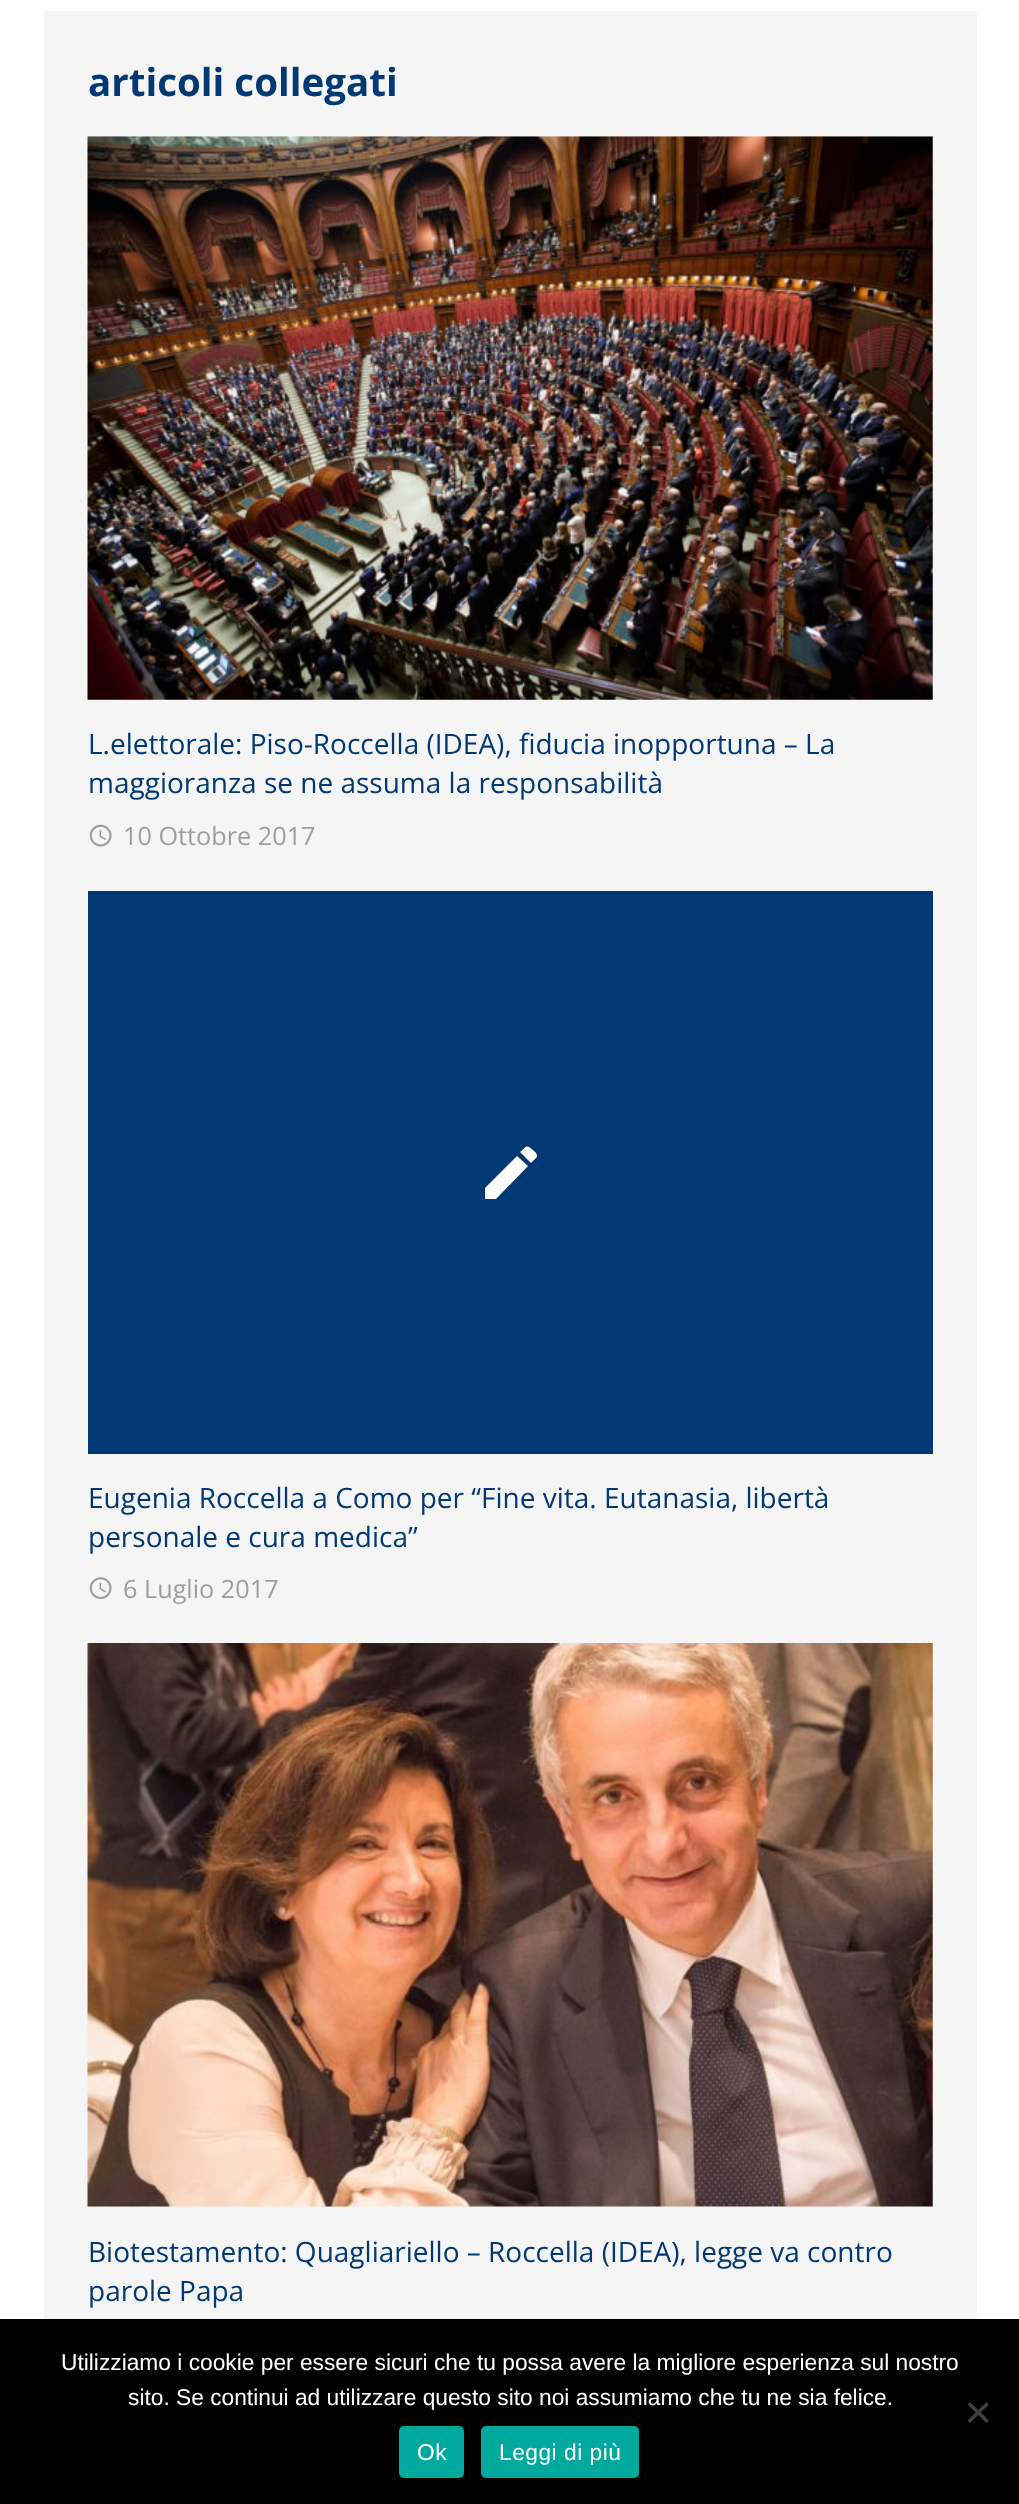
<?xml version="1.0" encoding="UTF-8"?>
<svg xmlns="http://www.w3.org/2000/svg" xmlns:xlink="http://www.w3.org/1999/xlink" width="1019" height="2504">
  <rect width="100%" height="100%" fill="#ffffff" />
  <rect x="44" y="11" width="933" height="2308" fill="#f5f5f5" />
  <image x="87" y="136" width="846" height="564" xlink:href="image1.png" />
  <image x="89" y="824" width="23" height="23" xlink:href="image2.png" />
  <rect x="88" y="891" width="845" height="563" fill="#003974" />
  <path d="M 536 1158 l -5 5 l -11 -11 c 7 -6 6 -8 13 -2 c 2 2 6 5 3 8 z m -51 30 l 32 -32 l 11 10 l -32 33 h -11 z" fill="#ffffff" />
  <image x="89" y="1577" width="23" height="22" xlink:href="image3.png" />
  <image x="87" y="1643" width="846" height="564" xlink:href="image4.png" />
  <rect y="2319" width="1019" height="185" fill="#000000" />
  <path d="M 986.5 2402 l 2.5 2.5 l -19 18.5 l -2.5 -2.5 z" fill="#404040" />
  <path d="M 967.5 2404.5 l 2.5 -2.5 l 19 18.5 l -2.5 2.5 z" fill="#404040" />
  <rect x="399" y="2426" width="65" height="52" rx="5" fill="#00a99d" />
  <rect x="481" y="2426" width="158" height="52" rx="5" fill="#00a99d" />
  <text x="88" y="96" style="font-family: Open Sans; font-size: 38.5px; font-weight: bold; fill: #003974">articoli collegati</text>
  <text x="88" y="754" style="font-family: Open Sans; font-size: 28px; fill: #003974">L.elettorale: Piso-Roccella (IDEA), fiducia inopportuna – La</text>
  <text x="88" y="793" style="font-family: Open Sans; font-size: 28px; fill: #003974">maggioranza se ne assuma la responsabilità</text>
  <text x="123" y="845" style="font-family: Open Sans; font-size: 25.25px; fill: #9e9e9e">10 Ottobre 2017</text>
  <text x="88" y="1508" style="font-family: Open Sans; font-size: 28px; fill: #003974">Eugenia Roccella a Como per “Fine vita. Eutanasia, libertà</text>
  <text x="88" y="1547" style="font-family: Open Sans; font-size: 28px; fill: #003974">personale e cura medica”</text>
  <text x="123" y="1598" style="font-family: Open Sans; font-size: 25.25px; fill: #9e9e9e">6 Luglio 2017</text>
  <text x="88" y="2262" style="font-family: Open Sans; font-size: 28px; fill: #003974">Biotestamento: Quagliariello – Roccella (IDEA), legge va contro</text>
  <text x="88" y="2301" style="font-family: Open Sans; font-size: 28px; fill: #003974">parole Papa</text>
  <text x="61" y="2370" style="font-family: Liberation Sans; font-size: 22.75px; fill: #ffffff">Utilizziamo i cookie per essere sicuri che tu possa avere la migliore esperienza sul nostro</text>
  <text x="128" y="2405" style="font-family: Liberation Sans; font-size: 22.75px; fill: #ffffff">sito. Se continui ad utilizzare questo sito noi assumiamo che tu ne sia felice.</text>
  <text x="417" y="2460" style="font-family: Liberation Sans; font-size: 22.75px; letter-spacing: 0.5px; fill: #ffffff">Ok</text>
  <text x="499" y="2460" style="font-family: Liberation Sans; font-size: 22.75px; letter-spacing: 0.5px; fill: #ffffff">Leggi di più</text>
</svg>
